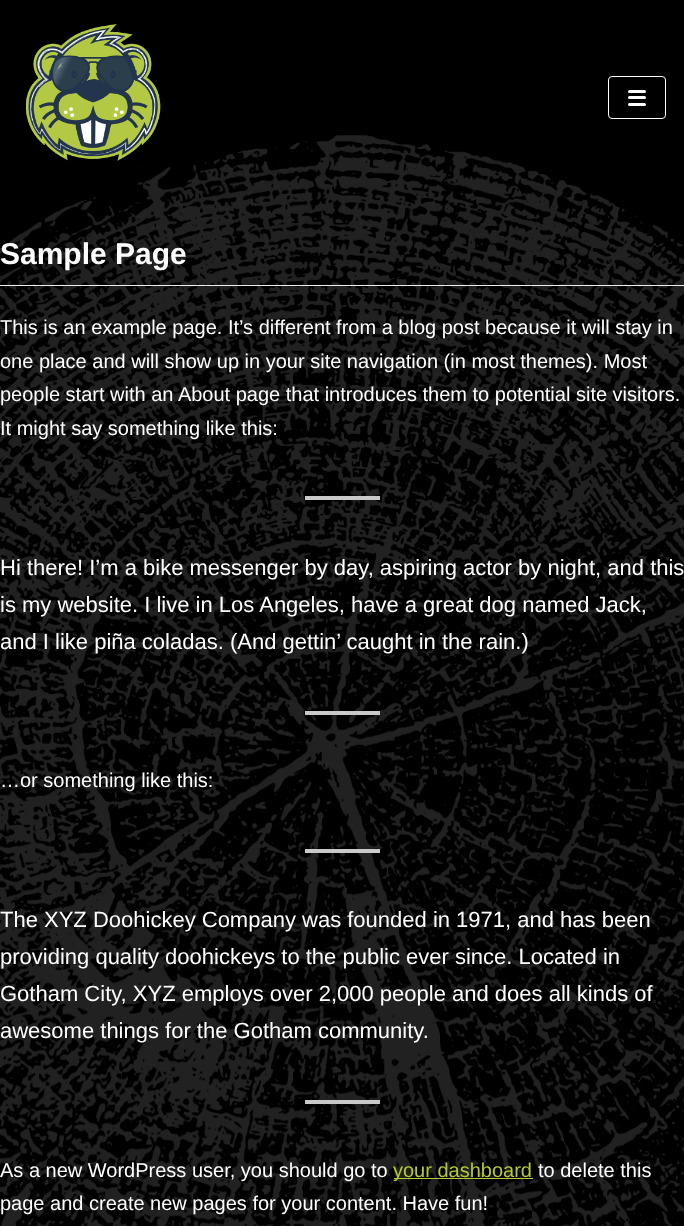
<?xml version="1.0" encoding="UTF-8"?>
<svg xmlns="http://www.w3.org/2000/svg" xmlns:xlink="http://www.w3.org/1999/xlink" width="684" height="1226">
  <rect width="100%" height="100%" fill="#000000" />
  <image x="0" y="135" width="684" height="1091" xlink:href="image1.png" />
  <image x="26" y="24" width="135" height="137" xlink:href="image2.png" />
  <rect x="608.5" y="76.5" width="57" height="42" rx="3.5" fill="none" stroke="#ffffff" />
  <rect x="628" y="90" width="18" height="3" rx="1.5" fill="#ffffff" />
  <rect x="628" y="96" width="18" height="3" rx="1.5" fill="#ffffff" />
  <rect x="628" y="103" width="18" height="3" rx="1.5" fill="#ffffff" />
  <rect y="285" width="684" height="1" fill="#ededed" />
  <rect x="305" y="496" width="75" height="4" fill="#c9c9c9" />
  <rect x="305" y="711" width="75" height="4" fill="#c9c9c9" />
  <rect x="305" y="849" width="75" height="4" fill="#c9c9c9" />
  <rect x="305" y="1100" width="75" height="4" fill="#c9c9c9" />
  <rect x="394" y="1178" width="139" height="1" fill="#b6c932" />
  <text x="0" y="264" style="font-family: Liberation Sans; font-size: 30px; font-weight: bold; fill: #ffffff">Sample Page</text>
  <text x="0" y="334" style="font-family: Liberation Sans; font-size: 20px; fill: #ffffff">This is an example page. It’s different from a blog post because it will stay in</text>
  <text x="0" y="368" style="font-family: Liberation Sans; font-size: 20px; fill: #ffffff">one place and will show up in your site navigation (in most themes). Most</text>
  <text x="0" y="401" style="font-family: Liberation Sans; font-size: 20px; fill: #ffffff">people start with an About page that introduces them to potential site visitors.</text>
  <text x="0" y="435" style="font-family: Liberation Sans; font-size: 20px; fill: #ffffff">It might say something like this:</text>
  <text x="0" y="575" style="font-family: Liberation Sans; font-size: 22px; fill: #ffffff">Hi there! I’m a bike messenger by day, aspiring actor by night, and this</text>
  <text x="0" y="612" style="font-family: Liberation Sans; font-size: 22px; fill: #ffffff">is my website. I live in Los Angeles, have a great dog named Jack,</text>
  <text x="0" y="649" style="font-family: Liberation Sans; font-size: 22px; fill: #ffffff">and I like piña coladas. (And gettin’ caught in the rain.)</text>
  <text x="0" y="787" style="font-family: Liberation Sans; font-size: 20px; fill: #ffffff">…or something like this:</text>
  <text x="0" y="927" style="font-family: Liberation Sans; font-size: 22px; fill: #ffffff">The XYZ Doohickey Company was founded in 1971, and has been</text>
  <text x="0" y="964" style="font-family: Liberation Sans; font-size: 22px; fill: #ffffff">providing quality doohickeys to the public ever since. Located in</text>
  <text x="0" y="1001" style="font-family: Liberation Sans; font-size: 22px; fill: #ffffff">Gotham City, XYZ employs over 2,000 people and does all kinds of</text>
  <text x="0" y="1038" style="font-family: Liberation Sans; font-size: 22px; fill: #ffffff">awesome things for the Gotham community.</text>
  <text x="0" y="1177" style="font-family: Liberation Sans; font-size: 20px; fill: #ffffff">As a new WordPress user, you should go to</text>
  <text x="393" y="1177" style="font-family: Liberation Sans; font-size: 20px; fill: #b6c932">your dashboard</text>
  <text x="538" y="1177" style="font-family: Liberation Sans; font-size: 20px; fill: #ffffff">to delete this</text>
  <text x="0" y="1210" style="font-family: Liberation Sans; font-size: 20px; fill: #ffffff">page and create new pages for your content. Have fun!</text>
</svg>
